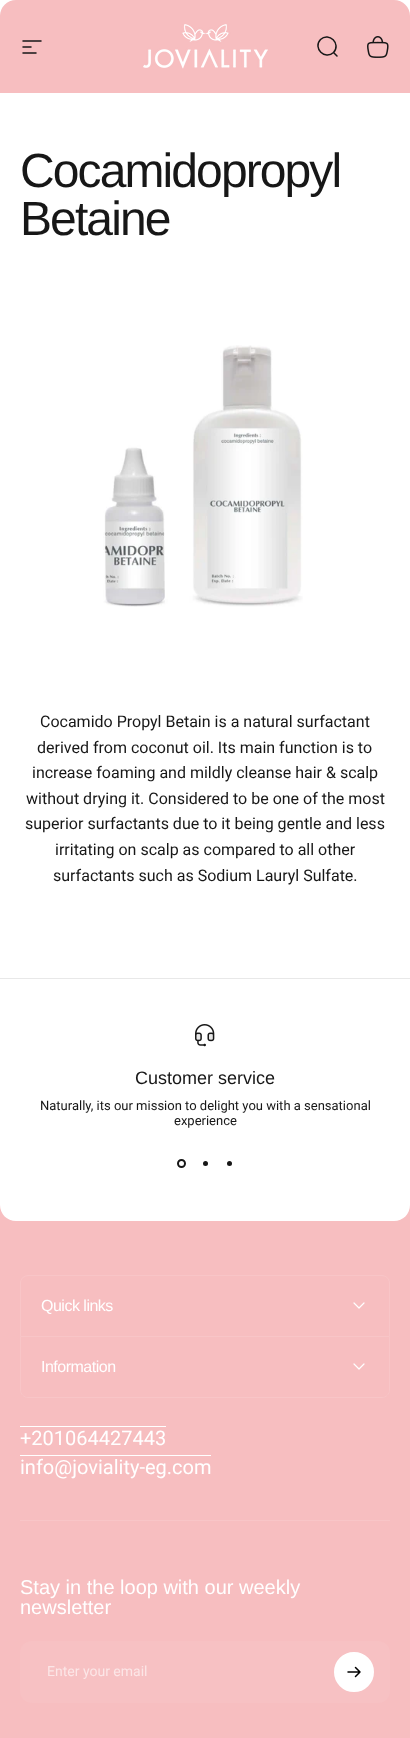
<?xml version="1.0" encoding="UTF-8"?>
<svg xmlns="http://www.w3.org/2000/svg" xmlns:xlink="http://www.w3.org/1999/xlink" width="410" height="1738">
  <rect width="100%" height="100%" fill="#ffffff" />
  <path d="M 16 0 h 378 c 9 0 16 7 16 16 v 77 h -410 v -77 c 0 -9 7 -16 16 -16 z" fill="#f7bec0" />
  <path d="M 23 41 h 18 m -18 6 h 8 m -8 6 h 13" fill="none" stroke="#171717" stroke-width="1.5" stroke-linecap="round" />
  <image x="143" y="24" width="125" height="45" xlink:href="image1.png" />
  <path d="M 337 56 l -3.5 -3.5 m 0 0 c 8 -8.5 -4.5 -21 -13 -13 c -8 8.5 4.5 21 13 13 z" fill="none" stroke="#171717" stroke-width="1.5" stroke-linecap="round" />
  <image x="367" y="36" width="22" height="22" xlink:href="image2.png" />
  <image x="103" y="345" width="200" height="262" xlink:href="image3.png" />
  <rect y="1205" width="410" height="533" fill="#f7bec0" />
  <path d="M 0 978 h 410 v 227 c 0 9 -7 16 -16 16 h -378 c -9 0 -16 -7 -16 -16 z" fill="#ffffff" />
  <rect y="978" width="410" height="1" fill="#e8e8e8" />
  <image x="195" y="1024" width="20" height="23" xlink:href="image4.png" />
  <circle cx="181.5" cy="1163.5" r="3.5" fill="none" stroke="#171717" stroke-width="2" />
  <circle cx="205.5" cy="1163.5" r="2.5" fill="#171717" />
  <circle cx="229.5" cy="1163.5" r="2.5" fill="#171717" />
  <path d="M 28 1275 h 354 c 4 0 8 4 8 8 v 53 h -370 v -53 c 0 -4 4 -8 8 -8 z m 0 1 h 354 c 4 0 7 3 7 7 v 53 h -368 v -53 c 0 -4 3 -7 7 -7 z" fill="#f8c5c7" fill-rule="evenodd" />
  <path d="M 354 1303 l 5 5 l 5 -5" fill="none" stroke="#ffffff" stroke-width="1.2" stroke-linecap="round" stroke-linejoin="round" />
  <path d="M 20.5 1336.5 h 369 v 53.5 c 0 4 -3.5 7.5 -7.5 7.5 h -354 c -4 0 -7.5 -3.5 -7.5 -7.5 z" fill="none" stroke="#f8c5c7" />
  <path d="M 354 1364 l 5 5 l 5 -5" fill="none" stroke="#ffffff" stroke-width="1.2" stroke-linecap="round" stroke-linejoin="round" />
  <rect x="20" y="1426" width="146" height="1" fill="#ffffff" />
  <rect x="20" y="1455" width="191" height="1" fill="#ffffff" />
  <rect x="20" y="1520" width="370" height="1" fill="#f8c5c7" />
  <rect x="20" y="1641" width="370" height="62" rx="12" fill="#f7c1c3" />
  <circle cx="354" cy="1672" r="19" fill="#ffffff" stroke="#ffffff" stroke-width="2" />
  <path d="M 348 1672 h 12 m 0 0 l -4.5 -4.5 m 4.5 4.5 l -4.5 4.5" fill="none" stroke="#000000" stroke-width="1.5" stroke-linecap="round" stroke-linejoin="round" />
  <text x="20" y="187" style="font-family: Liberation Sans; font-size: 48px; letter-spacing: -1.9px; fill: #171717">Cocamidopropyl</text>
  <text x="20" y="235" style="font-family: Liberation Sans; font-size: 48px; letter-spacing: -1.9px; fill: #171717">Betaine</text>
  <text x="40" y="727" style="font-family: Roboto; font-size: 16px; fill: #171717">Cocamido Propyl Betain is a natural surfactant</text>
  <text x="37" y="753" style="font-family: Roboto; font-size: 16px; fill: #171717">derived from coconut oil. Its main function is to</text>
  <text x="32" y="778" style="font-family: Roboto; font-size: 16px; fill: #171717">increase foaming and mildly cleanse hair &amp; scalp</text>
  <text x="26" y="804" style="font-family: Roboto; font-size: 16px; fill: #171717">without drying it. Considered to be one of the most</text>
  <text x="25" y="829" style="font-family: Roboto; font-size: 16px; fill: #171717">superior surfactants due to it being gentle and less</text>
  <text x="55" y="855" style="font-family: Roboto; font-size: 16px; fill: #171717">irritating on scalp as compared to all other</text>
  <text x="53" y="881" style="font-family: Roboto; font-size: 16px; fill: #171717">surfactants such as Sodium Lauryl Sulfate.</text>
  <text x="135" y="1084" style="font-family: Liberation Sans; font-size: 18px; fill: #171717">Customer service</text>
  <text x="40" y="1110" style="font-family: Roboto; font-size: 13px; fill: #171717">Naturally, its our mission to delight you with a sensational</text>
  <text x="174" y="1125" style="font-family: Roboto; font-size: 13px; fill: #171717">experience</text>
  <text x="41" y="1311" style="font-family: Liberation Sans; font-size: 16px; letter-spacing: -0.5px; fill: #ffffff">Quick links</text>
  <text x="41" y="1372" style="font-family: Liberation Sans; font-size: 16px; letter-spacing: -0.5px; fill: #ffffff">Information</text>
  <text x="20" y="1445" style="font-family: Roboto; font-size: 20px; fill: #ffffff">+201064427443</text>
  <text x="20" y="1474" style="font-family: Roboto; font-size: 20px; fill: #ffffff">info@joviality-eg.com</text>
  <text x="20" y="1594" style="font-family: Liberation Sans; font-size: 20px; fill: #ffffff">Stay in the loop with our weekly</text>
  <text x="20" y="1614" style="font-family: Liberation Sans; font-size: 20px; fill: #ffffff">newsletter</text>
  <text x="47" y="1676" style="font-family: Roboto; font-size: 14px; fill: #fce6e7">Enter your email</text>
</svg>
